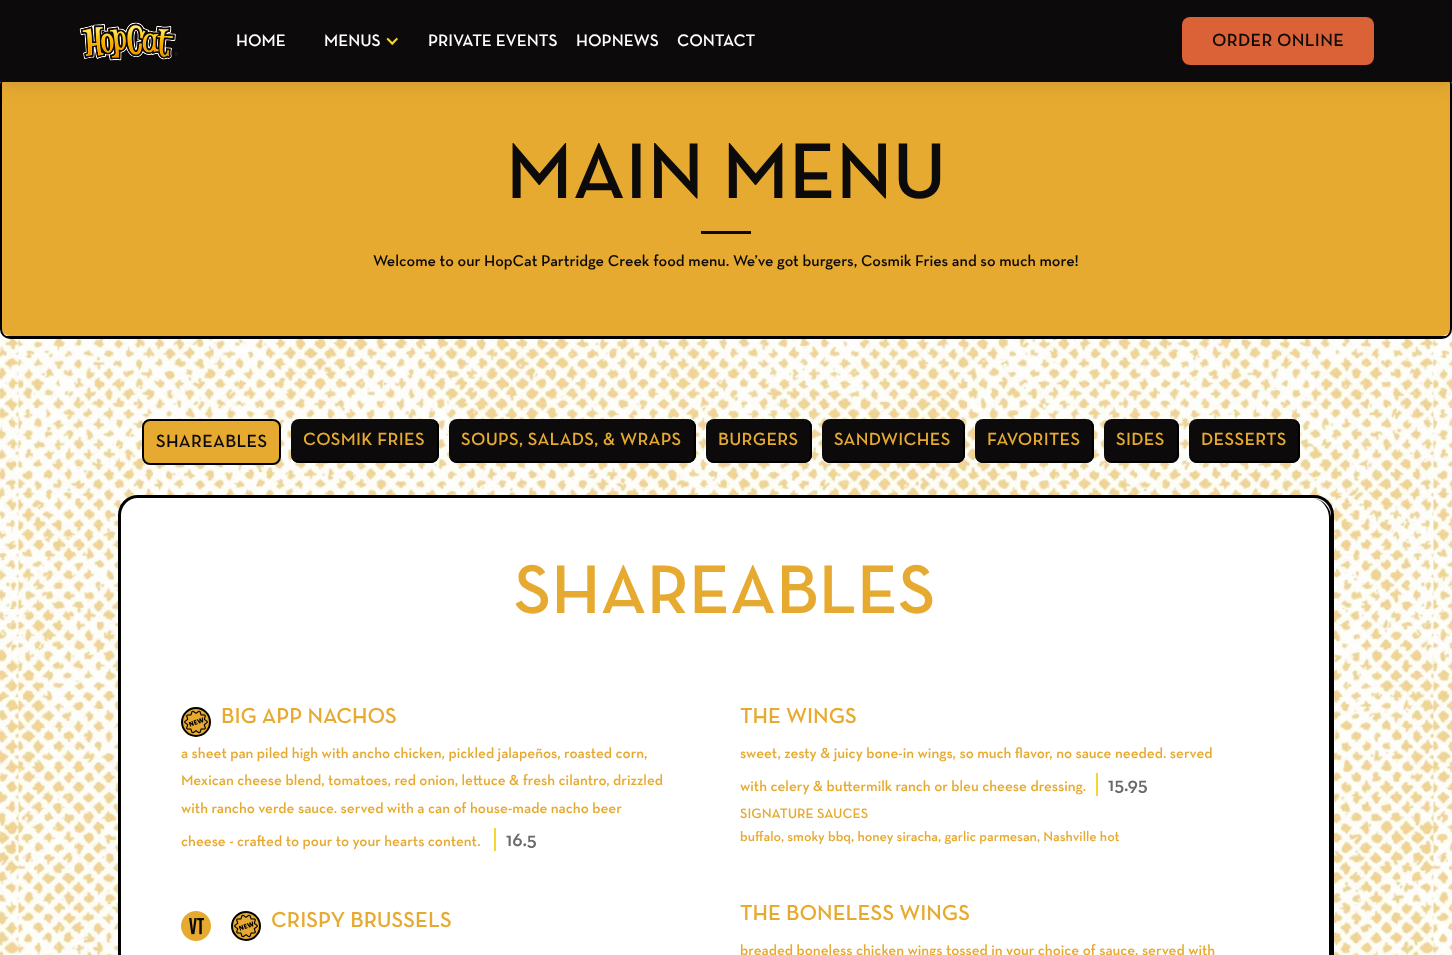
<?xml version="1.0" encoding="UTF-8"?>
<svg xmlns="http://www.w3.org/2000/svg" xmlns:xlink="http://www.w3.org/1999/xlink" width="1452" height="955">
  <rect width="100%" height="100%" fill="#ffffff" />
  <path d="M 10 76 h 1432 c 4 0 8 4 8 8 v 245 c 0 4 -4 7 -8 7 h -1432 c -4 0 -8 -3 -8 -7 v -245 c 0 -4 4 -8 8 -8 z" fill="#e7aa30" />
  <rect x="1" y="75" width="1450" height="263" rx="9" fill="none" stroke="#000000" stroke-width="2" />
  <rect width="1452" height="82" fill="#3d3d3d" fill-opacity="0.2" filter="blur(10px)" />
  <rect width="1452" height="82" fill="#0c0a0a" />
  <image x="79" y="22" width="99" height="39" xlink:href="image1.png" />
  <image x="386" y="37" width="12" height="9" xlink:href="image2.png" />
  <rect x="1182" y="17" width="192" height="48" rx="8" fill="#db6137" />
  <rect x="5" y="336" width="1442" height="1" fill="#000000" />
  <rect x="701" y="231" width="50" height="3" fill="#0c0a0a" />
  <image x="0" y="339" width="1452" height="616" xlink:href="image3.png" />
  <rect x="143" y="420" width="137" height="44" rx="7" fill="#e7aa30" stroke="#000000" stroke-width="2" />
  <rect x="291" y="419" width="148" height="44" rx="8" fill="#0c0a0a" />
  <path d="M 299 419 h 132 c 4 0 8 4 8 8 v 28 c 0 4 -4 8 -8 8 h -132 c -4 0 -8 -4 -8 -8 v -28 c 0 -4 4 -8 8 -8 z m 0 0 h 132 c 3 0 6 4 6 8 v 28 c 0 3 -3 6 -6 6 h -132 c -4 0 -8 -3 -8 -6 v -28 c 0 -4 4 -8 8 -8 z" fill="#000000" fill-rule="evenodd" />
  <rect x="449" y="419" width="247" height="44" rx="8" fill="#0c0a0a" />
  <path d="M 457 419 h 231 c 4 0 8 4 8 8 v 28 c 0 4 -4 8 -8 8 h -231 c -4 0 -8 -4 -8 -8 v -28 c 0 -4 4 -8 8 -8 z m 0 0 h 231 c 3 0 6 4 6 8 v 28 c 0 3 -3 6 -6 6 h -231 c -4 0 -8 -3 -8 -6 v -28 c 0 -4 4 -8 8 -8 z" fill="#000000" fill-rule="evenodd" />
  <rect x="706" y="419" width="106" height="44" rx="8" fill="#0c0a0a" />
  <path d="M 714 419 h 90 c 4 0 8 4 8 8 v 28 c 0 4 -4 8 -8 8 h -90 c -4 0 -8 -4 -8 -8 v -28 c 0 -4 4 -8 8 -8 z m 0 0 h 90 c 3 0 6 4 6 8 v 28 c 0 3 -3 6 -6 6 h -90 c -4 0 -8 -3 -8 -6 v -28 c 0 -4 4 -8 8 -8 z" fill="#000000" fill-rule="evenodd" />
  <rect x="822" y="419" width="143" height="44" rx="8" fill="#0c0a0a" />
  <path d="M 830 419 h 127 c 4 0 8 4 8 8 v 28 c 0 4 -4 8 -8 8 h -127 c -4 0 -8 -4 -8 -8 v -28 c 0 -4 4 -8 8 -8 z m 0 0 h 127 c 3 0 6 4 6 8 v 28 c 0 3 -3 6 -6 6 h -127 c -4 0 -8 -3 -8 -6 v -28 c 0 -4 4 -8 8 -8 z" fill="#000000" fill-rule="evenodd" />
  <rect x="975" y="419" width="119" height="44" rx="8" fill="#0c0a0a" />
  <path d="M 983 419 h 103 c 4 0 8 4 8 8 v 28 c 0 4 -4 8 -8 8 h -103 c -4 0 -8 -4 -8 -8 v -28 c 0 -4 4 -8 8 -8 z m 0 0 h 103 c 3 0 6 4 6 8 v 28 c 0 3 -3 6 -6 6 h -103 c -4 0 -8 -3 -8 -6 v -28 c 0 -4 4 -8 8 -8 z" fill="#000000" fill-rule="evenodd" />
  <rect x="1104" y="419" width="75" height="44" rx="8" fill="#0c0a0a" />
  <path d="M 1112 419 h 59 c 4 0 8 4 8 8 v 28 c 0 4 -4 8 -8 8 h -59 c -4 0 -8 -4 -8 -8 v -28 c 0 -4 4 -8 8 -8 z m 0 0 h 59 c 3 0 6 4 6 8 v 28 c 0 3 -3 6 -6 6 h -59 c -4 0 -8 -3 -8 -6 v -28 c 0 -4 4 -8 8 -8 z" fill="#000000" fill-rule="evenodd" />
  <rect x="1189" y="419" width="111" height="44" rx="8" fill="#0c0a0a" />
  <path d="M 1197 419 h 95 c 4 0 8 4 8 8 v 28 c 0 4 -4 8 -8 8 h -95 c -4 0 -8 -4 -8 -8 v -28 c 0 -4 4 -8 8 -8 z m 0 0 h 95 c 3 0 6 4 6 8 v 28 c 0 3 -3 6 -6 6 h -95 c -4 0 -8 -3 -8 -6 v -28 c 0 -4 4 -8 8 -8 z" fill="#000000" fill-rule="evenodd" />
  <rect x="119.5" y="496.5" width="1213" height="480" rx="18.5" fill="#ffffff" stroke="#000000" stroke-width="3" />
  <rect x="121" y="498" width="1210" height="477" rx="20" fill="#ffffff" />
  <path d="M 141 498 h 1170 c 11 0 20 9 20 20 v 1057 c 0 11 -9 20 -20 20 h -1170 c -11 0 -20 -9 -20 -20 v -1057 c 0 -11 9 -20 20 -20 z m 0 0 h 1170 c 10 0 18 9 18 20 v 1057 c 0 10 -8 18 -18 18 h -1170 c -11 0 -20 -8 -20 -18 v -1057 c 0 -11 9 -20 20 -20 z" fill="#000000" fill-rule="evenodd" />
  <circle cx="196" cy="722" r="14" fill="#e7aa30" stroke="#000000" stroke-width="2" />
  <image x="184" y="710" width="24" height="24" xlink:href="image4.png" />
  <rect x="494" y="828" width="2" height="23" fill="#f7d630" />
  <rect x="1096" y="773" width="2" height="23" fill="#f7d630" />
  <image x="181" y="911" width="30" height="30" xlink:href="image5.png" />
  <circle cx="246" cy="926" r="14" fill="#e7aa30" stroke="#000000" stroke-width="2" />
  <image x="234" y="914" width="24" height="24" xlink:href="image4.png" />
  <text x="236" y="46" style="font-family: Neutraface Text; font-size: 17px; font-weight: 600; fill: #ffffff">HOME</text>
  <text x="324" y="46" style="font-family: Neutraface Text; font-size: 17px; font-weight: 600; fill: #ffffff">MENUS</text>
  <text x="428" y="46" style="font-family: Neutraface Text; font-size: 17px; font-weight: 600; fill: #ffffff">PRIVATE EVENTS</text>
  <text x="576" y="46" style="font-family: Neutraface Text; font-size: 17px; font-weight: 600; fill: #ffffff">HOPNEWS</text>
  <text x="677" y="46" style="font-family: Neutraface Text; font-size: 17px; font-weight: 600; fill: #ffffff">CONTACT</text>
  <text x="1212" y="46" style="font-family: Neutraface Text; font-size: 18px; font-weight: 600; letter-spacing: 0.3px; fill: #0c0a0a">ORDER ONLINE</text>
  <text x="506" y="198" style="font-family: Neutraface Text; font-size: 80px; font-weight: 600; fill: #0c0a0a">MAIN MENU</text>
  <text x="373" y="266" style="font-family: Neutraface Text; font-size: 16px; font-weight: 600; fill: #0c0a0a">Welcome to our HopCat Partridge Creek food menu. We’ve got burgers, Cosmik Fries and so much more!</text>
  <text x="156" y="447" style="font-family: Neutraface Text; font-size: 18px; font-weight: 600; letter-spacing: 0.3px; fill: #0c0a0a">SHAREABLES</text>
  <text x="303" y="445" style="font-family: Neutraface Text; font-size: 18px; font-weight: 600; letter-spacing: 0.3px; fill: #e7aa30">COSMIK FRIES</text>
  <text x="461" y="445" style="font-family: Neutraface Text; font-size: 18px; font-weight: 600; letter-spacing: 0.3px; fill: #e7aa30">SOUPS, SALADS, &amp; WRAPS</text>
  <text x="718" y="445" style="font-family: Neutraface Text; font-size: 18px; font-weight: 600; letter-spacing: 0.3px; fill: #e7aa30">BURGERS</text>
  <text x="834" y="445" style="font-family: Neutraface Text; font-size: 18px; font-weight: 600; letter-spacing: 0.3px; fill: #e7aa30">SANDWICHES</text>
  <text x="987" y="445" style="font-family: Neutraface Text; font-size: 18px; font-weight: 600; letter-spacing: 0.3px; fill: #e7aa30">FAVORITES</text>
  <text x="1116" y="445" style="font-family: Neutraface Text; font-size: 18px; font-weight: 600; letter-spacing: 0.3px; fill: #e7aa30">SIDES</text>
  <text x="1201" y="445" style="font-family: Neutraface Text; font-size: 18px; font-weight: 600; letter-spacing: 0.3px; fill: #e7aa30">DESSERTS</text>
  <text x="514" y="613" style="font-family: Neutraface Text; font-size: 70px; font-weight: 600; fill: #e7aa30">SHAREABLES</text>
  <text x="221" y="723" style="font-family: Neutraface Text; font-size: 22px; font-weight: 600; fill: #e7aa30">BIG APP NACHOS</text>
  <text x="181" y="758" style="font-family: Neutraface Text; font-size: 15px; font-weight: 600; fill: #e7aa30">a sheet pan piled high with ancho chicken, pickled jalapeños, roasted corn,</text>
  <text x="181" y="785" style="font-family: Neutraface Text; font-size: 15px; font-weight: 600; fill: #e7aa30">Mexican cheese blend, tomatoes, red onion, lettuce &amp; fresh cilantro, drizzled</text>
  <text x="181" y="813" style="font-family: Neutraface Text; font-size: 15px; font-weight: 600; fill: #e7aa30">with rancho verde sauce. served with a can of house-made nacho beer</text>
  <text x="181" y="846" style="font-family: Neutraface Text; font-size: 15px; font-weight: 600; fill: #e7aa30">cheese - crafted to pour to your hearts content.</text>
  <text x="506" y="846" style="font-family: Neutraface Text; font-size: 20px; font-weight: 600; fill: #696969">16.5</text>
  <text x="740" y="723" style="font-family: Neutraface Text; font-size: 22px; font-weight: 600; fill: #e7aa30">THE WINGS</text>
  <text x="740" y="758" style="font-family: Neutraface Text; font-size: 15px; font-weight: 600; fill: #e7aa30">sweet, zesty &amp; juicy bone-in wings, so much flavor, no sauce needed. served</text>
  <text x="740" y="791" style="font-family: Neutraface Text; font-size: 15px; font-weight: 600; fill: #e7aa30">with celery &amp; buttermilk ranch or bleu cheese dressing.</text>
  <text x="1108" y="791" style="font-family: Neutraface Text; font-size: 20px; font-weight: 600; fill: #696969">15.95</text>
  <text x="740" y="818" style="font-family: Neutraface Text; font-size: 14px; font-weight: 600; fill: #e7aa30">SIGNATURE SAUCES</text>
  <text x="740" y="841" style="font-family: Neutraface Text; font-size: 14px; font-weight: 600; fill: #e7aa30">buffalo, smoky bbq, honey siracha, garlic parmesan, Nashville hot</text>
  <text x="271" y="927" style="font-family: Neutraface Text; font-size: 22px; font-weight: 600; fill: #e7aa30">CRISPY BRUSSELS</text>
  <text x="740" y="920" style="font-family: Neutraface Text; font-size: 22px; font-weight: 600; fill: #e7aa30">THE BONELESS WINGS</text>
  <text x="740" y="955" style="font-family: Neutraface Text; font-size: 15px; font-weight: 600; fill: #e7aa30">breaded boneless chicken wings tossed in your choice of sauce. served with</text>
</svg>
